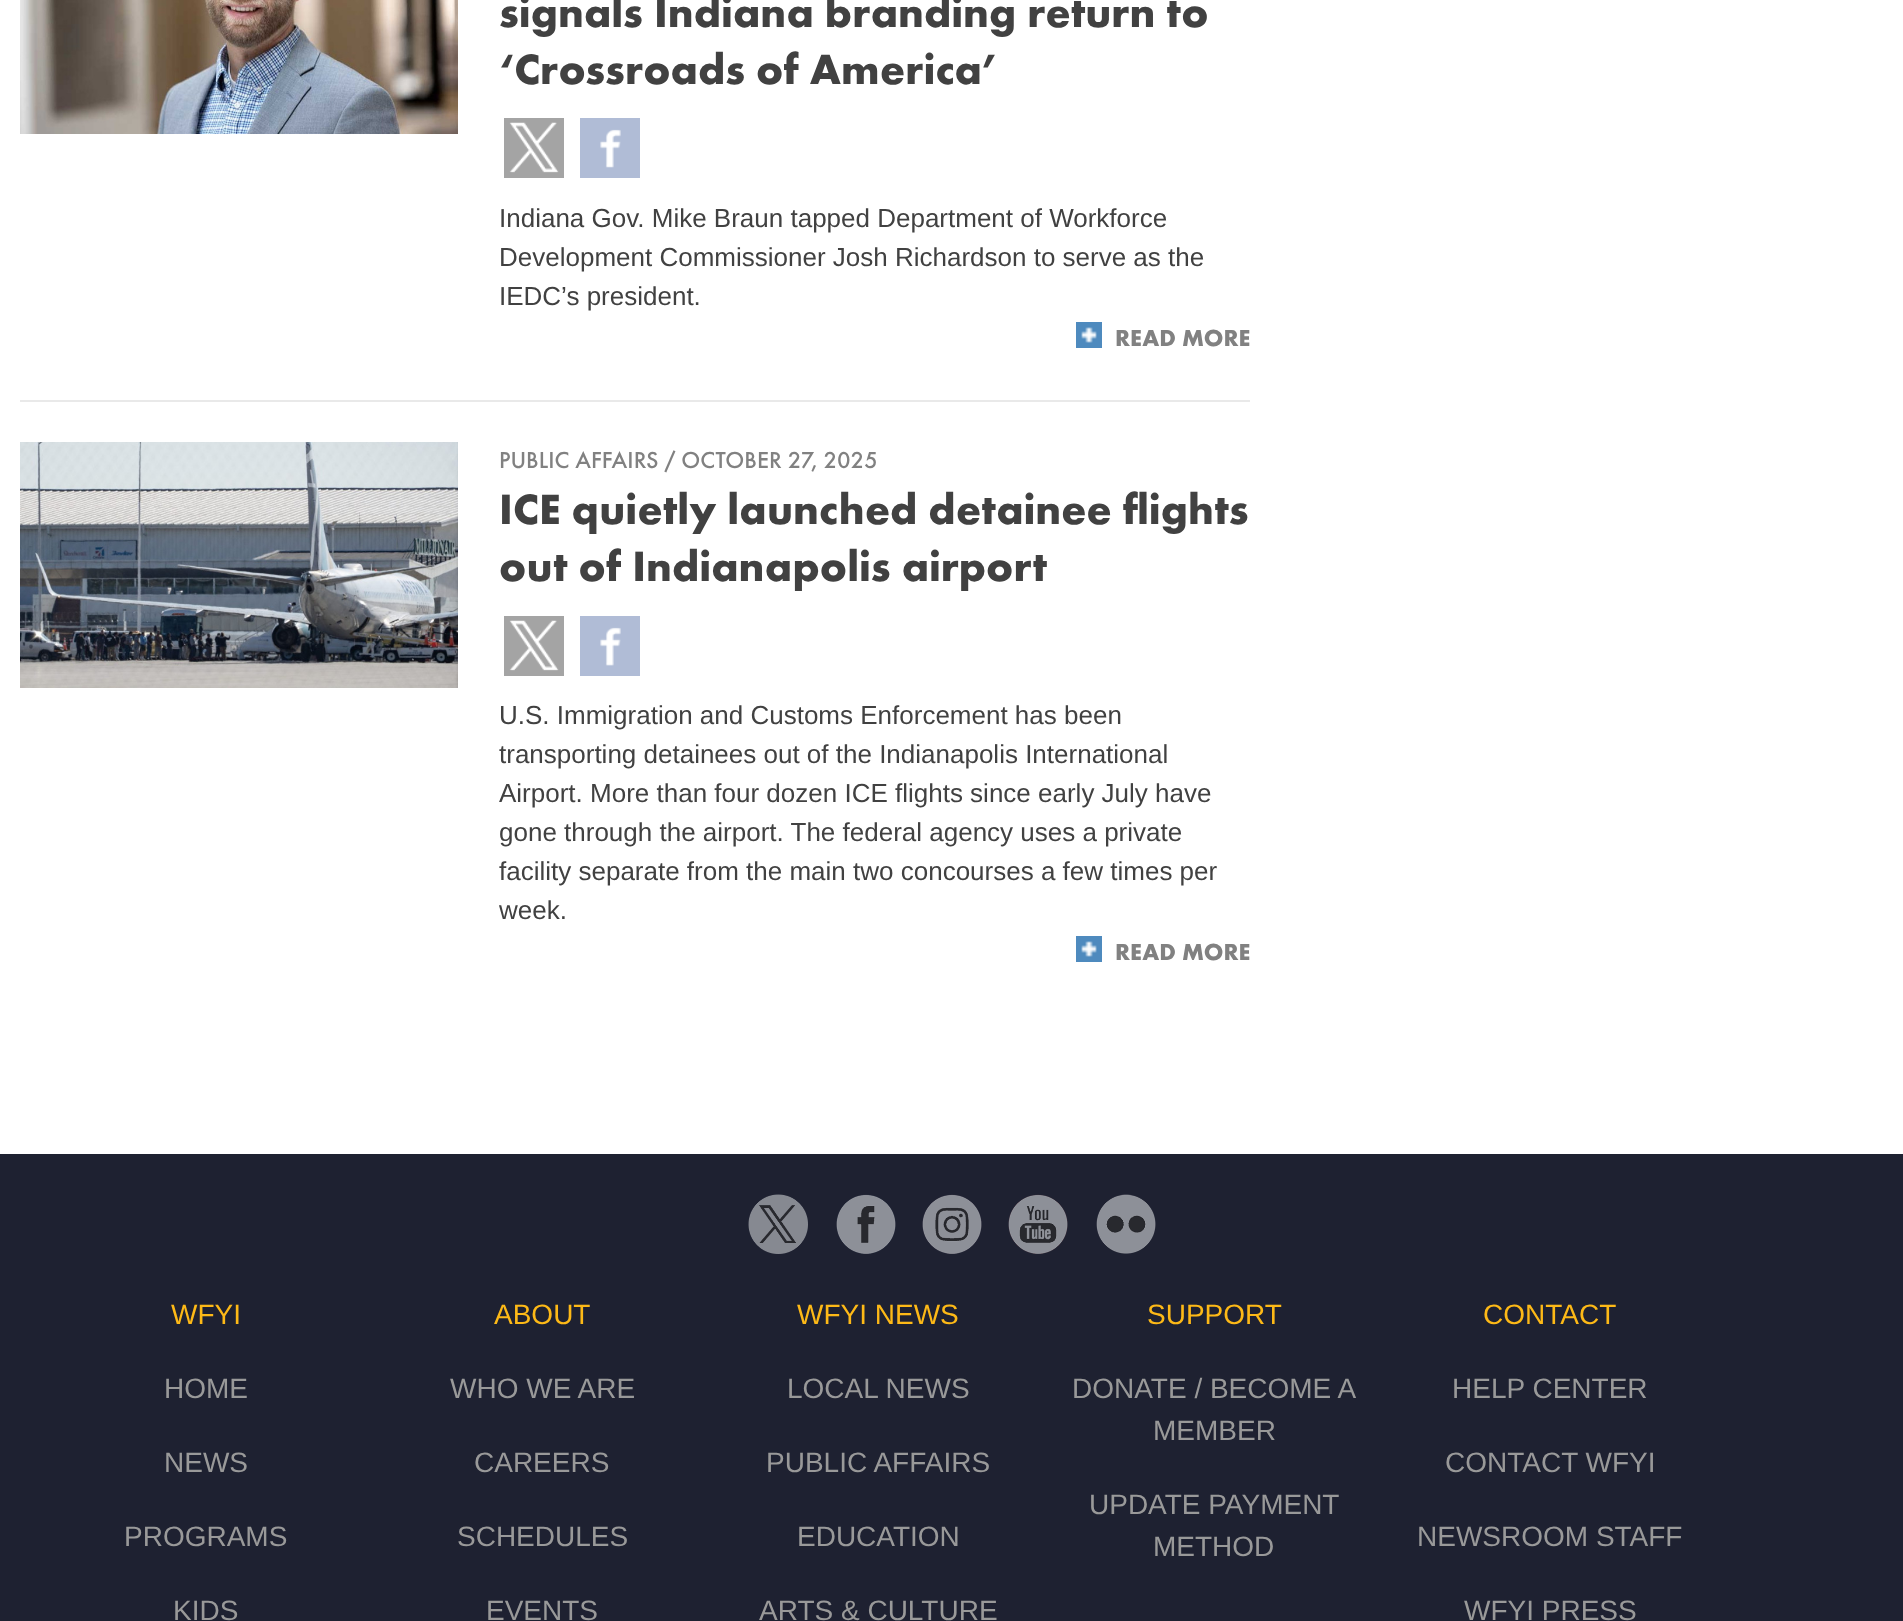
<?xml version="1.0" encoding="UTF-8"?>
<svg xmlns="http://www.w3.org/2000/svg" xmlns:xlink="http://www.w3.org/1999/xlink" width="1903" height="1621">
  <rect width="100%" height="100%" fill="#ffffff" />
  <image x="20" y="0" width="438" height="134" xlink:href="image1.png" />
  <image x="504" y="118" width="60" height="60" xlink:href="image2.png" />
  <image x="580" y="118" width="60" height="60" xlink:href="image3.png" />
  <image x="1076" y="322" width="26" height="26" xlink:href="image4.png" />
  <rect x="20" y="400" width="1230" height="2" fill="#e9e9e9" />
  <image x="20" y="442" width="438" height="246" xlink:href="image5.png" />
  <image x="504" y="616" width="60" height="60" xlink:href="image6.png" />
  <image x="580" y="616" width="60" height="60" xlink:href="image7.png" />
  <image x="1076" y="936" width="26" height="26" xlink:href="image4.png" />
  <rect y="1154" width="1903" height="467" fill="#1e2131" />
  <image x="748" y="1194" width="60" height="60" xlink:href="image8.png" />
  <image x="836" y="1194" width="60" height="60" xlink:href="image9.png" />
  <image x="922" y="1194" width="60" height="60" xlink:href="image10.png" />
  <image x="1008" y="1194" width="60" height="60" xlink:href="image11.png" />
  <image x="1096" y="1194" width="60" height="60" xlink:href="image12.png" />
  <text x="499" y="27" style="font-family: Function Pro; font-size: 44px; font-weight: bold; fill: #414141">signals Indiana branding return to</text>
  <text x="499" y="84" style="font-family: Function Pro; font-size: 44px; font-weight: bold; fill: #414141">‘Crossroads of America’</text>
  <text x="499" y="227" style="font-family: Liberation Sans; font-size: 26px; fill: #414141">Indiana Gov. Mike Braun tapped Department of Workforce</text>
  <text x="499" y="266" style="font-family: Liberation Sans; font-size: 26px; fill: #414141">Development Commissioner Josh Richardson to serve as the</text>
  <text x="499" y="305" style="font-family: Liberation Sans; font-size: 26px; fill: #414141">IEDC’s president.</text>
  <text x="1115" y="346" style="font-family: Function Pro; font-size: 24px; font-weight: bold; fill: #818181">READ MORE</text>
  <text x="499" y="468" style="font-family: Function Pro; font-size: 24px; font-weight: 500; fill: #818181">PUBLIC AFFAIRS / OCTOBER 27, 2025</text>
  <text x="499" y="524" style="font-family: Function Pro; font-size: 44px; font-weight: bold; fill: #414141">ICE quietly launched detainee flights</text>
  <text x="499" y="581" style="font-family: Function Pro; font-size: 44px; font-weight: bold; fill: #414141">out of Indianapolis airport</text>
  <text x="499" y="724" style="font-family: Liberation Sans; font-size: 26px; fill: #414141">U.S. Immigration and Customs Enforcement has been</text>
  <text x="499" y="763" style="font-family: Liberation Sans; font-size: 26px; fill: #414141">transporting detainees out of the Indianapolis International</text>
  <text x="499" y="802" style="font-family: Liberation Sans; font-size: 26px; fill: #414141">Airport. More than four dozen ICE flights since early July have</text>
  <text x="499" y="841" style="font-family: Liberation Sans; font-size: 26px; fill: #414141">gone through the airport. The federal agency uses a private</text>
  <text x="499" y="880" style="font-family: Liberation Sans; font-size: 26px; fill: #414141">facility separate from the main two concourses a few times per</text>
  <text x="499" y="919" style="font-family: Liberation Sans; font-size: 26px; fill: #414141">week.</text>
  <text x="1115" y="960" style="font-family: Function Pro; font-size: 24px; font-weight: bold; fill: #818181">READ MORE</text>
  <text x="171" y="1324" style="font-family: Liberation Sans; font-size: 28px; fill: #fdb917">WFYI</text>
  <text x="164" y="1398" style="font-family: Liberation Sans; font-size: 28px; fill: #999999">HOME</text>
  <text x="164" y="1472" style="font-family: Liberation Sans; font-size: 28px; fill: #999999">NEWS</text>
  <text x="124" y="1546" style="font-family: Liberation Sans; font-size: 28px; fill: #999999">PROGRAMS</text>
  <text x="173" y="1620" style="font-family: Liberation Sans; font-size: 28px; fill: #999999">KIDS</text>
  <text x="494" y="1324" style="font-family: Liberation Sans; font-size: 28px; fill: #fdb917">ABOUT</text>
  <text x="450" y="1398" style="font-family: Liberation Sans; font-size: 28px; fill: #999999">WHO WE ARE</text>
  <text x="474" y="1472" style="font-family: Liberation Sans; font-size: 28px; fill: #999999">CAREERS</text>
  <text x="457" y="1546" style="font-family: Liberation Sans; font-size: 28px; fill: #999999">SCHEDULES</text>
  <text x="486" y="1620" style="font-family: Liberation Sans; font-size: 28px; fill: #999999">EVENTS</text>
  <text x="797" y="1324" style="font-family: Liberation Sans; font-size: 28px; fill: #fdb917">WFYI NEWS</text>
  <text x="787" y="1398" style="font-family: Liberation Sans; font-size: 28px; fill: #999999">LOCAL NEWS</text>
  <text x="766" y="1472" style="font-family: Liberation Sans; font-size: 28px; fill: #999999">PUBLIC AFFAIRS</text>
  <text x="797" y="1546" style="font-family: Liberation Sans; font-size: 28px; fill: #999999">EDUCATION</text>
  <text x="759" y="1620" style="font-family: Liberation Sans; font-size: 28px; fill: #999999">ARTS &amp; CULTURE</text>
  <text x="1147" y="1324" style="font-family: Liberation Sans; font-size: 28px; fill: #fdb917">SUPPORT</text>
  <text x="1072" y="1398" style="font-family: Liberation Sans; font-size: 28px; fill: #999999">DONATE / BECOME A</text>
  <text x="1153" y="1440" style="font-family: Liberation Sans; font-size: 28px; fill: #999999">MEMBER</text>
  <text x="1089" y="1514" style="font-family: Liberation Sans; font-size: 28px; fill: #999999">UPDATE PAYMENT</text>
  <text x="1153" y="1556" style="font-family: Liberation Sans; font-size: 28px; fill: #999999">METHOD</text>
  <text x="1483" y="1324" style="font-family: Liberation Sans; font-size: 28px; fill: #fdb917">CONTACT</text>
  <text x="1452" y="1398" style="font-family: Liberation Sans; font-size: 28px; fill: #999999">HELP CENTER</text>
  <text x="1445" y="1472" style="font-family: Liberation Sans; font-size: 28px; fill: #999999">CONTACT WFYI</text>
  <text x="1417" y="1546" style="font-family: Liberation Sans; font-size: 28px; fill: #999999">NEWSROOM STAFF</text>
  <text x="1464" y="1620" style="font-family: Liberation Sans; font-size: 28px; fill: #999999">WFYI PRESS</text>
</svg>
